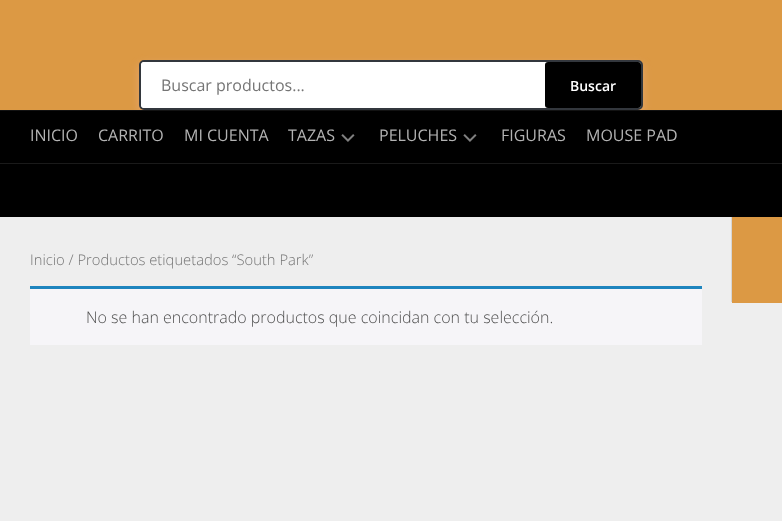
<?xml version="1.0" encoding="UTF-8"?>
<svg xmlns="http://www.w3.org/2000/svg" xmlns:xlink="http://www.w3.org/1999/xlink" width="782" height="521">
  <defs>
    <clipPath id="clip1"><rect y="217" width="782" height="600" /></clipPath>
  </defs>
  <rect width="100%" height="100%" fill="#dc9944" />
  <rect x="139" y="64" width="504" height="50" rx="5" fill="#ffc0cb" fill-opacity="0.3" filter="blur(5px)" />
  <rect x="140" y="61" width="502" height="48" rx="4" fill="#ffffff" stroke="#33373d" stroke-width="2" />
  <path d="M 144 62 h 401 v 46 h -401 c -1.5 0 -3 -1.5 -3 -3 v -40 c 0 -1.5 1.5 -3 3 -3 z" fill="#ffffff" />
  <rect x="545" y="62" width="96" height="46" rx="3" fill="#000000" />
  <rect y="111" width="782" height="52" fill="#000000" />
  <rect y="110" width="782" height="1" fill="#121212" />
  <image x="341" y="134" width="14" height="8" xlink:href="image1.png" />
  <image x="463" y="134" width="14" height="8" xlink:href="image1.png" />
  <rect y="217" width="782" height="304" fill="#eeeeee" />
  <rect y="164" width="782" height="53" fill="#000000" />
  <rect y="163" width="782" height="1" fill="#1a1a1a" />
  <rect x="30" y="289" width="672" height="56" fill="#f6f5f8" />
  <rect x="30" y="286" width="672" height="3" fill="#1e85be" />
  <g clip-path="url(#clip1)">
    <path d="M 731 216 v 86 h 1 v -85 h 49 v -1 z" fill="#d6d6d6" />
  </g>
  <rect x="732" y="217" width="50" height="86" fill="#dc9944" />
  <text x="161" y="91" style="font-family: Open Sans; font-size: 16px; fill: #757575">Buscar productos...</text>
  <text x="570" y="91" style="font-family: Open Sans; font-size: 14px; font-weight: 600; fill: #ffffff">Buscar</text>
  <text x="30" y="141" style="font-family: Open Sans; font-size: 16px; fill: #b3b3b3">INICIO</text>
  <text x="98" y="141" style="font-family: Open Sans; font-size: 16px; fill: #b3b3b3">CARRITO</text>
  <text x="184" y="141" style="font-family: Open Sans; font-size: 16px; fill: #b3b3b3">MI CUENTA</text>
  <text x="288" y="141" style="font-family: Open Sans; font-size: 16px; fill: #b3b3b3">TAZAS</text>
  <text x="379" y="141" style="font-family: Open Sans; font-size: 16px; fill: #b3b3b3">PELUCHES</text>
  <text x="501" y="141" style="font-family: Open Sans; font-size: 16px; fill: #b3b3b3">FIGURAS</text>
  <text x="586" y="141" style="font-family: Open Sans; font-size: 16px; fill: #b3b3b3">MOUSE PAD</text>
  <text x="30" y="265" style="font-family: Open Sans; font-size: 14.75px; font-weight: 300; fill: #757575">Inicio / Productos etiquetados “South Park”</text>
  <text x="86" y="323" style="font-family: Open Sans; font-size: 16px; font-weight: 300; fill: #515151">No se han encontrado productos que coincidan con tu selección.</text>
</svg>
